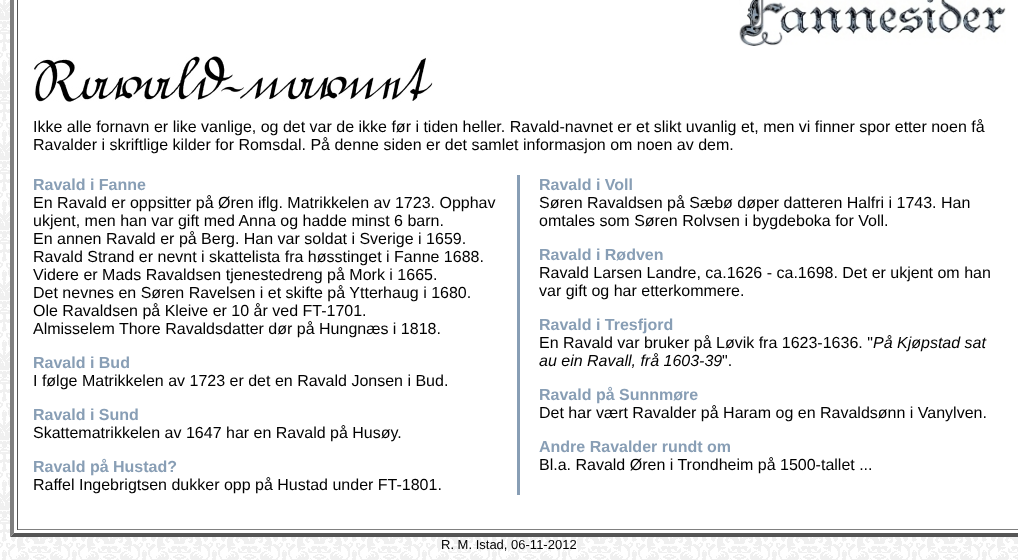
<?xml version="1.0" encoding="UTF-8"?>
<svg xmlns="http://www.w3.org/2000/svg" xmlns:xlink="http://www.w3.org/1999/xlink" width="1018" height="560">
  <rect width="100%" height="100%" fill="#ffffff" />
  <image x="0" y="0" width="1018" height="560" xlink:href="image1.png" />
  <rect x="10" width="1008" height="537" fill="#ffffff" />
  <path d="M 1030 537 h -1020 l 4 -4 h 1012 z" fill="#555555" />
  <path d="M 10 537 v -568 l 4 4 v 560 z" fill="#808080" />
  <rect x="17" y="529" width="1001" height="1" fill="#808080" />
  <rect x="17" width="1" height="530" fill="#555555" />
  <image x="739" y="0" width="267" height="46" xlink:href="image2.png" />
  <image x="34" y="56" width="399" height="46" xlink:href="image3.png" />
  <rect x="517" y="175" width="3" height="320" fill="#889eb5" />
  <text x="33" y="132" style="font-family: Liberation Sans; font-size: 16px; fill: #000000">Ikke alle fornavn er like vanlige, og det var de ikke før i tiden heller. Ravald-navnet er et slikt uvanlig et, men vi finner spor etter noen få</text>
  <text x="33" y="150" style="font-family: Liberation Sans; font-size: 16px; fill: #000000">Ravalder i skriftlige kilder for Romsdal. På denne siden er det samlet informasjon om noen av dem.</text>
  <text x="33" y="190" style="font-family: Liberation Sans; font-size: 16px; font-weight: bold; fill: #889eb5">Ravald i Fanne</text>
  <text x="33" y="208" style="font-family: Liberation Sans; font-size: 16px; fill: #000000">En Ravald er oppsitter på Øren iflg. Matrikkelen av 1723. Opphav</text>
  <text x="33" y="226" style="font-family: Liberation Sans; font-size: 16px; fill: #000000">ukjent, men han var gift med Anna og hadde minst 6 barn.</text>
  <text x="33" y="244" style="font-family: Liberation Sans; font-size: 16px; fill: #000000">En annen Ravald er på Berg. Han var soldat i Sverige i 1659.</text>
  <text x="33" y="262" style="font-family: Liberation Sans; font-size: 16px; fill: #000000">Ravald Strand er nevnt i skattelista fra høsstinget i Fanne 1688.</text>
  <text x="33" y="280" style="font-family: Liberation Sans; font-size: 16px; fill: #000000">Videre er Mads Ravaldsen tjenestedreng på Mork i 1665.</text>
  <text x="33" y="298" style="font-family: Liberation Sans; font-size: 16px; fill: #000000">Det nevnes en Søren Ravelsen i et skifte på Ytterhaug i 1680.</text>
  <text x="33" y="316" style="font-family: Liberation Sans; font-size: 16px; fill: #000000">Ole Ravaldsen på Kleive er 10 år ved FT-1701.</text>
  <text x="33" y="334" style="font-family: Liberation Sans; font-size: 16px; fill: #000000">Almisselem Thore Ravaldsdatter dør på Hungnæs i 1818.</text>
  <text x="33" y="368" style="font-family: Liberation Sans; font-size: 16px; font-weight: bold; fill: #889eb5">Ravald i Bud</text>
  <text x="33" y="386" style="font-family: Liberation Sans; font-size: 16px; fill: #000000">I følge Matrikkelen av 1723 er det en Ravald Jonsen i Bud.</text>
  <text x="33" y="420" style="font-family: Liberation Sans; font-size: 16px; font-weight: bold; fill: #889eb5">Ravald i Sund</text>
  <text x="33" y="438" style="font-family: Liberation Sans; font-size: 16px; fill: #000000">Skattematrikkelen av 1647 har en Ravald på Husøy.</text>
  <text x="33" y="472" style="font-family: Liberation Sans; font-size: 16px; font-weight: bold; fill: #889eb5">Ravald på Hustad?</text>
  <text x="33" y="490" style="font-family: Liberation Sans; font-size: 16px; fill: #000000">Raffel Ingebrigtsen dukker opp på Hustad under FT-1801.</text>
  <text x="539" y="190" style="font-family: Liberation Sans; font-size: 16px; font-weight: bold; fill: #889eb5">Ravald i Voll</text>
  <text x="539" y="208" style="font-family: Liberation Sans; font-size: 16px; fill: #000000">Søren Ravaldsen på Sæbø døper datteren Halfri i 1743. Han</text>
  <text x="539" y="226" style="font-family: Liberation Sans; font-size: 16px; fill: #000000">omtales som Søren Rolvsen i bygdeboka for Voll.</text>
  <text x="539" y="260" style="font-family: Liberation Sans; font-size: 16px; font-weight: bold; fill: #889eb5">Ravald i Rødven</text>
  <text x="539" y="278" style="font-family: Liberation Sans; font-size: 16px; fill: #000000">Ravald Larsen Landre, ca.1626 - ca.1698. Det er ukjent om han</text>
  <text x="539" y="296" style="font-family: Liberation Sans; font-size: 16px; fill: #000000">var gift og har etterkommere.</text>
  <text x="539" y="330" style="font-family: Liberation Sans; font-size: 16px; font-weight: bold; fill: #889eb5">Ravald i Tresfjord</text>
  <text x="539" y="348" style="font-family: Liberation Sans; font-size: 16px; fill: #000000">En Ravald var bruker på Løvik fra 1623-1636. "</text>
  <text x="873" y="348" style="font-family: Liberation Sans; font-size: 16px; font-style: italic; fill: #000000">På Kjøpstad sat</text>
  <text x="539" y="366" style="font-family: Liberation Sans; font-size: 16px; font-style: italic; fill: #000000">au ein Ravall, frå 1603-39</text>
  <text x="722" y="366" style="font-family: Liberation Sans; font-size: 16px; fill: #000000">".</text>
  <text x="539" y="400" style="font-family: Liberation Sans; font-size: 16px; font-weight: bold; fill: #889eb5">Ravald på Sunnmøre</text>
  <text x="539" y="418" style="font-family: Liberation Sans; font-size: 16px; fill: #000000">Det har vært Ravalder på Haram og en Ravaldsønn i Vanylven.</text>
  <text x="539" y="452" style="font-family: Liberation Sans; font-size: 16px; font-weight: bold; fill: #889eb5">Andre Ravalder rundt om</text>
  <text x="539" y="470" style="font-family: Liberation Sans; font-size: 16px; fill: #000000">Bl.a. Ravald Øren i Trondheim på 1500-tallet ...</text>
  <text x="441" y="549" style="font-family: Liberation Sans; font-size: 13px; fill: #000000">R. M. Istad, 06-11-2012</text>
</svg>
